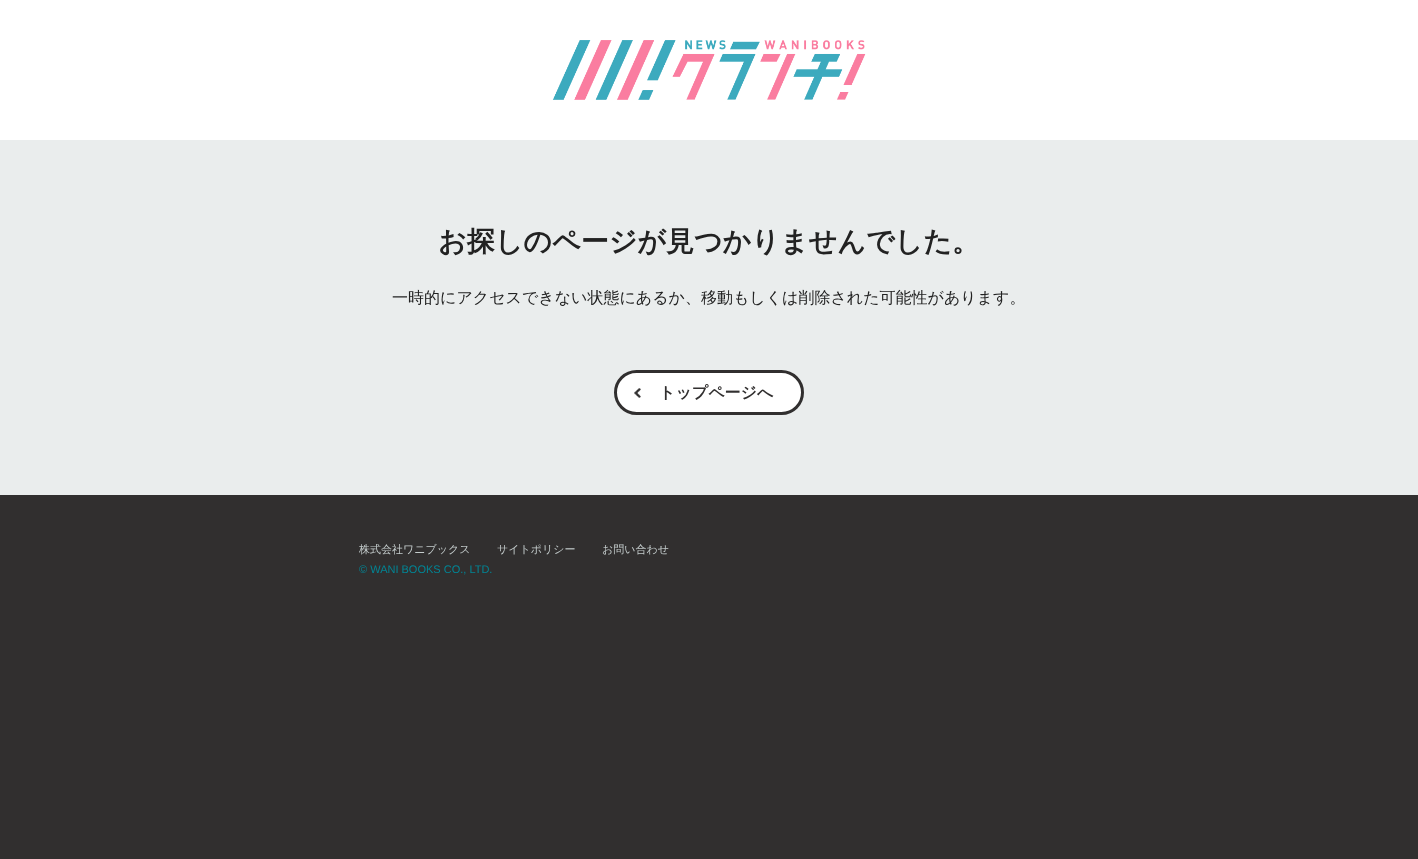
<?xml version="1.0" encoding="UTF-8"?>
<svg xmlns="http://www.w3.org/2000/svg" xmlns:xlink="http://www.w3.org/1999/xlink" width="1418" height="859">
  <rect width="100%" height="100%" fill="#312f2f" />
  <rect width="1418" height="140" fill="#ffffff" />
  <image x="552" y="40" width="314" height="60" xlink:href="image1.png" />
  <rect y="140" width="1418" height="355" fill="#eaeded" />
  <rect x="615.5" y="371.5" width="187" height="42" rx="21" fill="#ffffff" stroke="#312f2f" stroke-width="3" />
  <image x="634" y="388" width="7" height="10" xlink:href="image2.png" />
  <text x="438" y="251" style="font-family: WenQuanYi Zen Hei; font-size: 28px; font-weight: bold; fill: #222222">お探しのページが見つかりませんでした。</text>
  <text x="392" y="303" style="font-family: WenQuanYi Zen Hei; font-size: 16px; font-weight: 500; fill: #222222">一時的にアクセスできない状態にあるか、移動もしくは削除された可能性があります。</text>
  <text x="659" y="398" style="font-family: WenQuanYi Zen Hei; font-size: 16px; font-weight: bold; fill: #312f2f">トップページへ</text>
  <text x="359" y="553" style="font-family: WenQuanYi Zen Hei; font-size: 11px; font-weight: 500; fill: #c4cccc">株式会社ワニブックス</text>
  <text x="497" y="553" style="font-family: WenQuanYi Zen Hei; font-size: 11px; font-weight: 500; fill: #c4cccc">サイトポリシー</text>
  <text x="602" y="553" style="font-family: WenQuanYi Zen Hei; font-size: 11px; font-weight: 500; fill: #c4cccc">お問い合わせ</text>
  <text x="359" y="573" style="font-family: Liberation Sans; font-size: 11px; fill: #028595">© WANI BOOKS CO., LTD.</text>
</svg>
